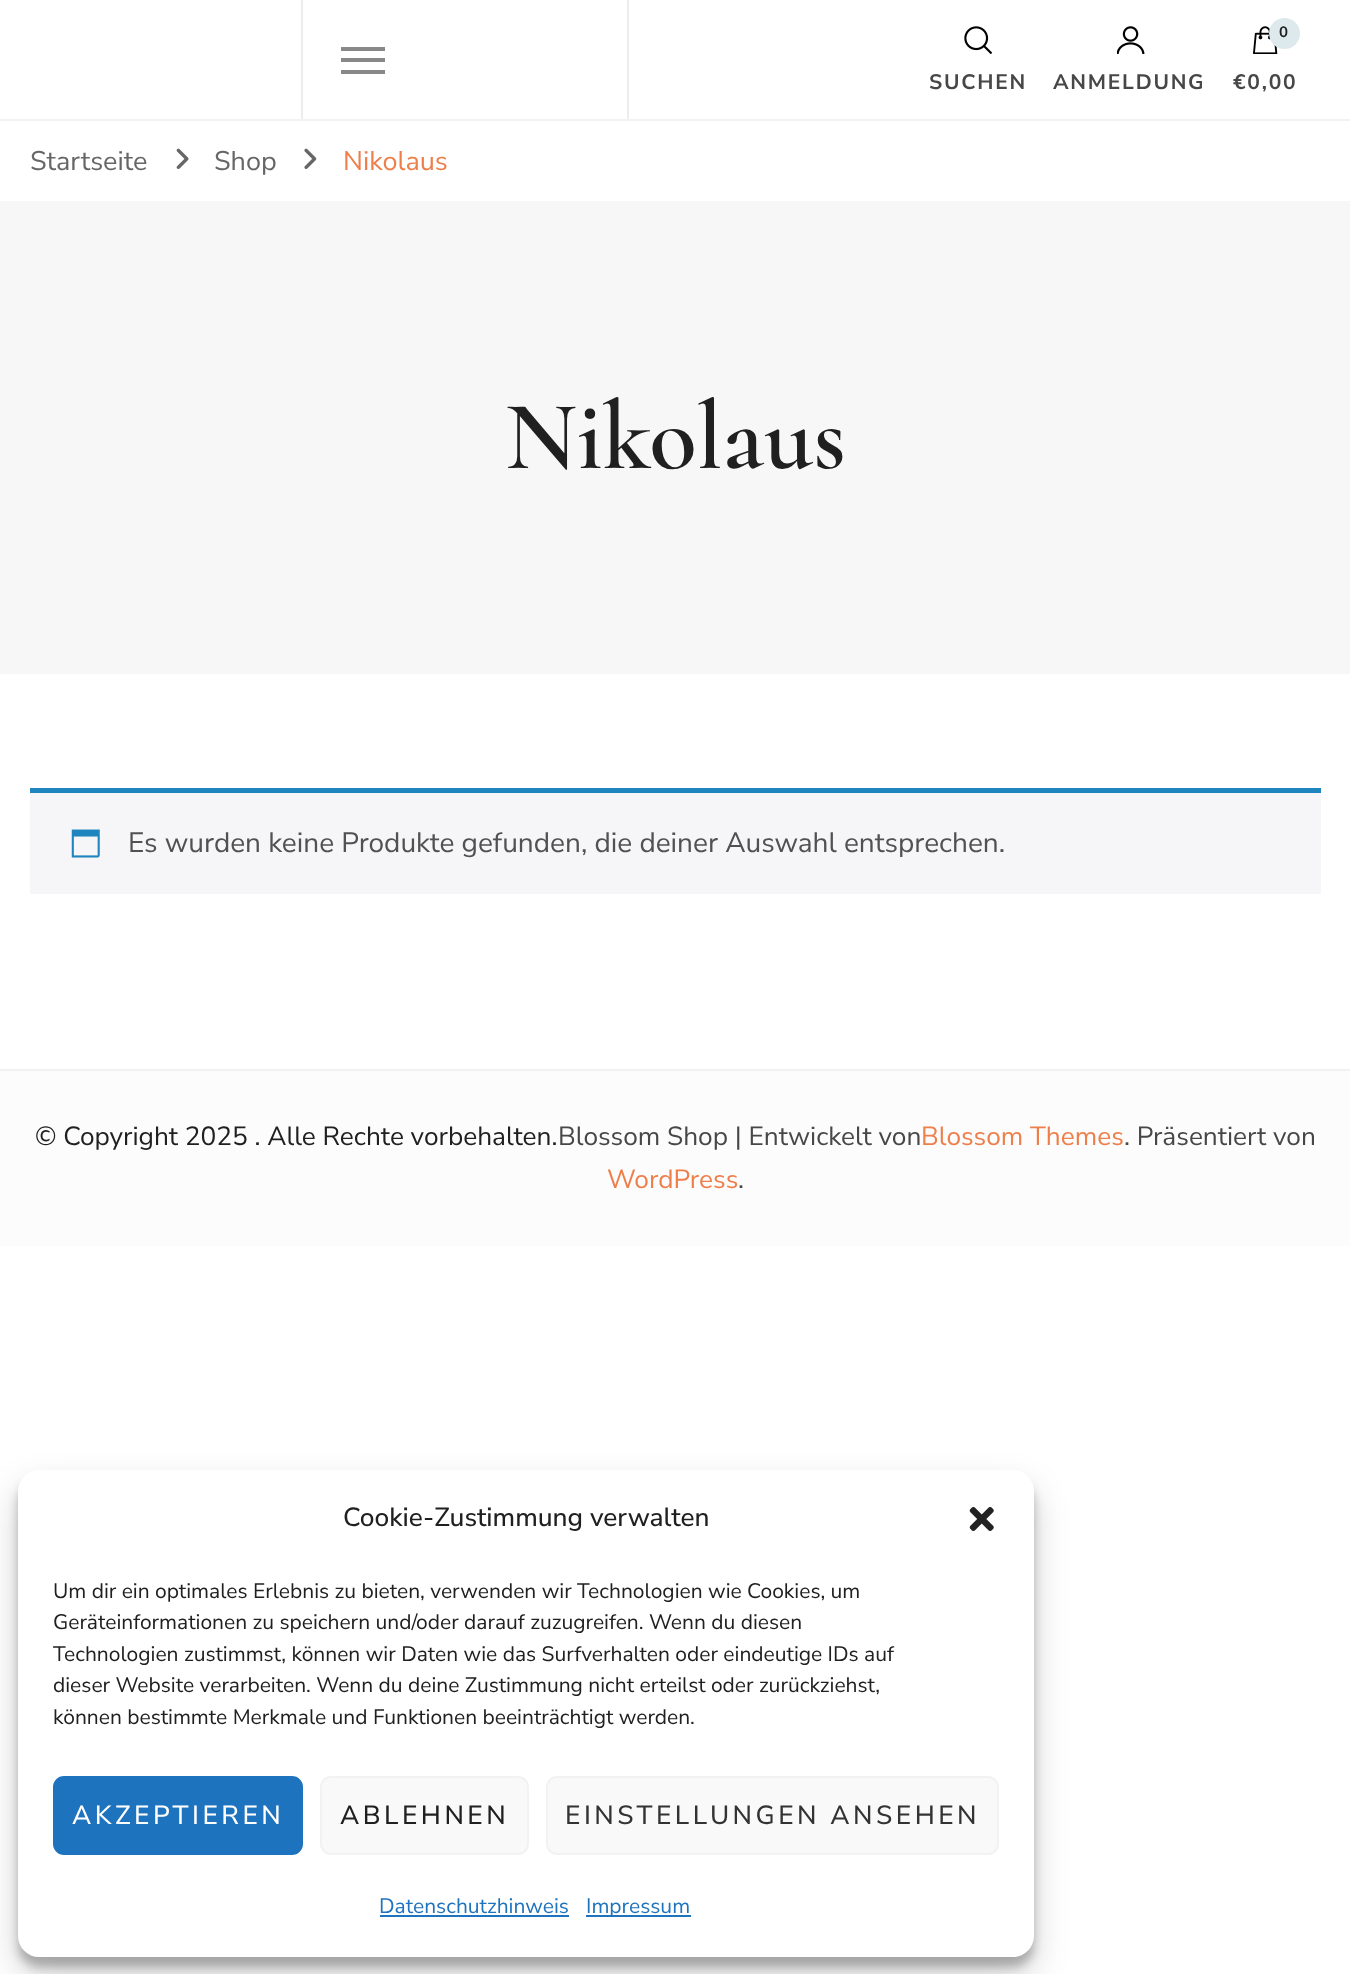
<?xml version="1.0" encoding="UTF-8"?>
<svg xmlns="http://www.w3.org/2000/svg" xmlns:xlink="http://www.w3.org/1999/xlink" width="1350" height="1974">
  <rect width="100%" height="100%" fill="#ffffff" />
  <rect y="119" width="1350" height="2" fill="#f2f2f2" />
  <rect x="301" width="2" height="119" fill="#ededed" />
  <rect x="341" y="47" width="44" height="4" fill="#888888" />
  <rect x="341" y="58" width="44" height="4" fill="#888888" />
  <rect x="341" y="70" width="44" height="4" fill="#888888" />
  <rect x="627" width="2" height="119" fill="#ededed" />
  <image x="964" y="26" width="28" height="28" xlink:href="image1.png" />
  <image x="1117" y="26" width="28" height="28" xlink:href="image2.png" />
  <image x="1253" y="26" width="25" height="28" xlink:href="image3.png" />
  <circle cx="1284.5" cy="33.5" r="15.5" fill="#dde9ed" />
  <image x="176" y="148" width="13" height="21" xlink:href="image4.png" />
  <image x="304" y="148" width="13" height="21" xlink:href="image5.png" />
  <rect y="201" width="1350" height="473" fill="#f7f7f7" />
  <rect x="30" y="793" width="1291" height="101" fill="#f6f5f8" />
  <rect x="30" y="788" width="1291" height="5" fill="#1e85be" />
  <image x="71" y="829" width="29" height="29" xlink:href="image6.png" />
  <rect y="1071" width="1350" height="175" fill="#fcfcfc" />
  <rect y="1069" width="1350" height="2" fill="#f0f1f2" />
  <rect x="18" y="1481" width="1016" height="486" rx="21" fill="#000000" fill-opacity="0.23" filter="blur(5px)" />
  <rect x="18" y="1488" width="1016" height="486" rx="21" fill="#000000" fill-opacity="0.19" filter="blur(17.5px)" />
  <rect x="18" y="1470" width="1016" height="487" rx="21" fill="#ffffff" />
  <image x="969" y="1507" width="25" height="24" xlink:href="image7.png" />
  <rect x="54" y="1777" width="248" height="77" rx="10" fill="#1e73be" stroke="#1e73be" stroke-width="2" />
  <rect x="321" y="1777" width="207" height="77" rx="10" fill="#f9f9f9" stroke="#f2f2f2" stroke-width="2" />
  <rect x="547" y="1777" width="451" height="77" rx="10" fill="#f9f9f9" stroke="#f2f2f2" stroke-width="2" />
  <rect x="380" y="1915" width="189" height="2" fill="#1e73be" />
  <rect x="586" y="1915" width="105" height="2" fill="#1e73be" />
  <text x="929" y="89" style="font-family: Nunito Sans; font-size: 21px; font-weight: bold; letter-spacing: 1.75px; fill: #474747">SUCHEN</text>
  <text x="1053" y="89" style="font-family: Nunito Sans; font-size: 21px; font-weight: bold; letter-spacing: 1.75px; fill: #474747">ANMELDUNG</text>
  <text x="1279" y="37" style="font-family: Nunito Sans; font-size: 15px; font-weight: bold; letter-spacing: 1.75px; fill: #202020">0</text>
  <text x="1233" y="89" style="font-family: Nunito Sans; font-size: 21px; font-weight: bold; letter-spacing: 1.75px; fill: #474747">€0,00</text>
  <text x="30" y="170" style="font-family: Nunito Sans; font-size: 27px; fill: #666666">Startseite</text>
  <text x="214" y="170" style="font-family: Nunito Sans; font-size: 27px; fill: #666666">Shop</text>
  <text x="343" y="170" style="font-family: Nunito Sans; font-size: 27px; fill: #ee7f4b">Nikolaus</text>
  <text x="505" y="468" style="font-family: Cormorant; font-size: 98px; font-weight: 600; fill: #202020">Nikolaus</text>
  <text x="128" y="852" style="font-family: Nunito Sans; font-size: 28px; fill: #515151">Es wurden keine Produkte gefunden, die deiner Auswahl entsprechen.</text>
  <text x="35" y="1145" style="font-family: Nunito Sans; font-size: 26.25px; fill: #202020">© Copyright 2025 . Alle Rechte vorbehalten.</text>
  <text x="558" y="1145" style="font-family: Nunito Sans; font-size: 26.25px; fill: #474747">Blossom Shop | Entwickelt von</text>
  <text x="921" y="1145" style="font-family: Nunito Sans; font-size: 26.25px; fill: #ee7f4b">Blossom Themes</text>
  <text x="1124" y="1145" style="font-family: Nunito Sans; font-size: 26.25px; fill: #474747">. Präsentiert von</text>
  <text x="607" y="1188" style="font-family: Nunito Sans; font-size: 26.25px; fill: #ee7f4b">WordPress</text>
  <text x="738" y="1188" style="font-family: Nunito Sans; font-size: 26.25px; fill: #474747">.</text>
  <text x="343" y="1526" style="font-family: Nunito Sans; font-size: 26.25px; font-weight: 500; fill: #202020">Cookie-Zustimmung verwalten</text>
  <text x="53" y="1598" style="font-family: Nunito Sans; font-size: 21px; fill: #202020">Um dir ein optimales Erlebnis zu bieten, verwenden wir Technologien wie Cookies, um</text>
  <text x="53" y="1629" style="font-family: Nunito Sans; font-size: 21px; fill: #202020">Geräteinformationen zu speichern und/oder darauf zuzugreifen. Wenn du diesen</text>
  <text x="53" y="1661" style="font-family: Nunito Sans; font-size: 21px; fill: #202020">Technologien zustimmst, können wir Daten wie das Surfverhalten oder eindeutige IDs auf</text>
  <text x="53" y="1692" style="font-family: Nunito Sans; font-size: 21px; fill: #202020">dieser Website verarbeiten. Wenn du deine Zustimmung nicht erteilst oder zurückziehst,</text>
  <text x="53" y="1724" style="font-family: Nunito Sans; font-size: 21px; fill: #202020">können bestimmte Merkmale und Funktionen beeinträchtigt werden.</text>
  <text x="72" y="1824" style="font-family: Nunito Sans; font-size: 26.25px; font-weight: 500; letter-spacing: 3.5px; fill: #ffffff">AKZEPTIEREN</text>
  <text x="340" y="1824" style="font-family: Nunito Sans; font-size: 26.25px; font-weight: 500; letter-spacing: 3.5px; fill: #202020">ABLEHNEN</text>
  <text x="565" y="1824" style="font-family: Nunito Sans; font-size: 26.25px; font-weight: 500; letter-spacing: 3.5px; fill: #333333">EINSTELLUNGEN ANSEHEN</text>
  <text x="379" y="1913" style="font-family: Nunito Sans; font-size: 21px; fill: #1e73be">Datenschutzhinweis</text>
  <text x="586" y="1913" style="font-family: Nunito Sans; font-size: 21px; fill: #1e73be">Impressum</text>
</svg>
